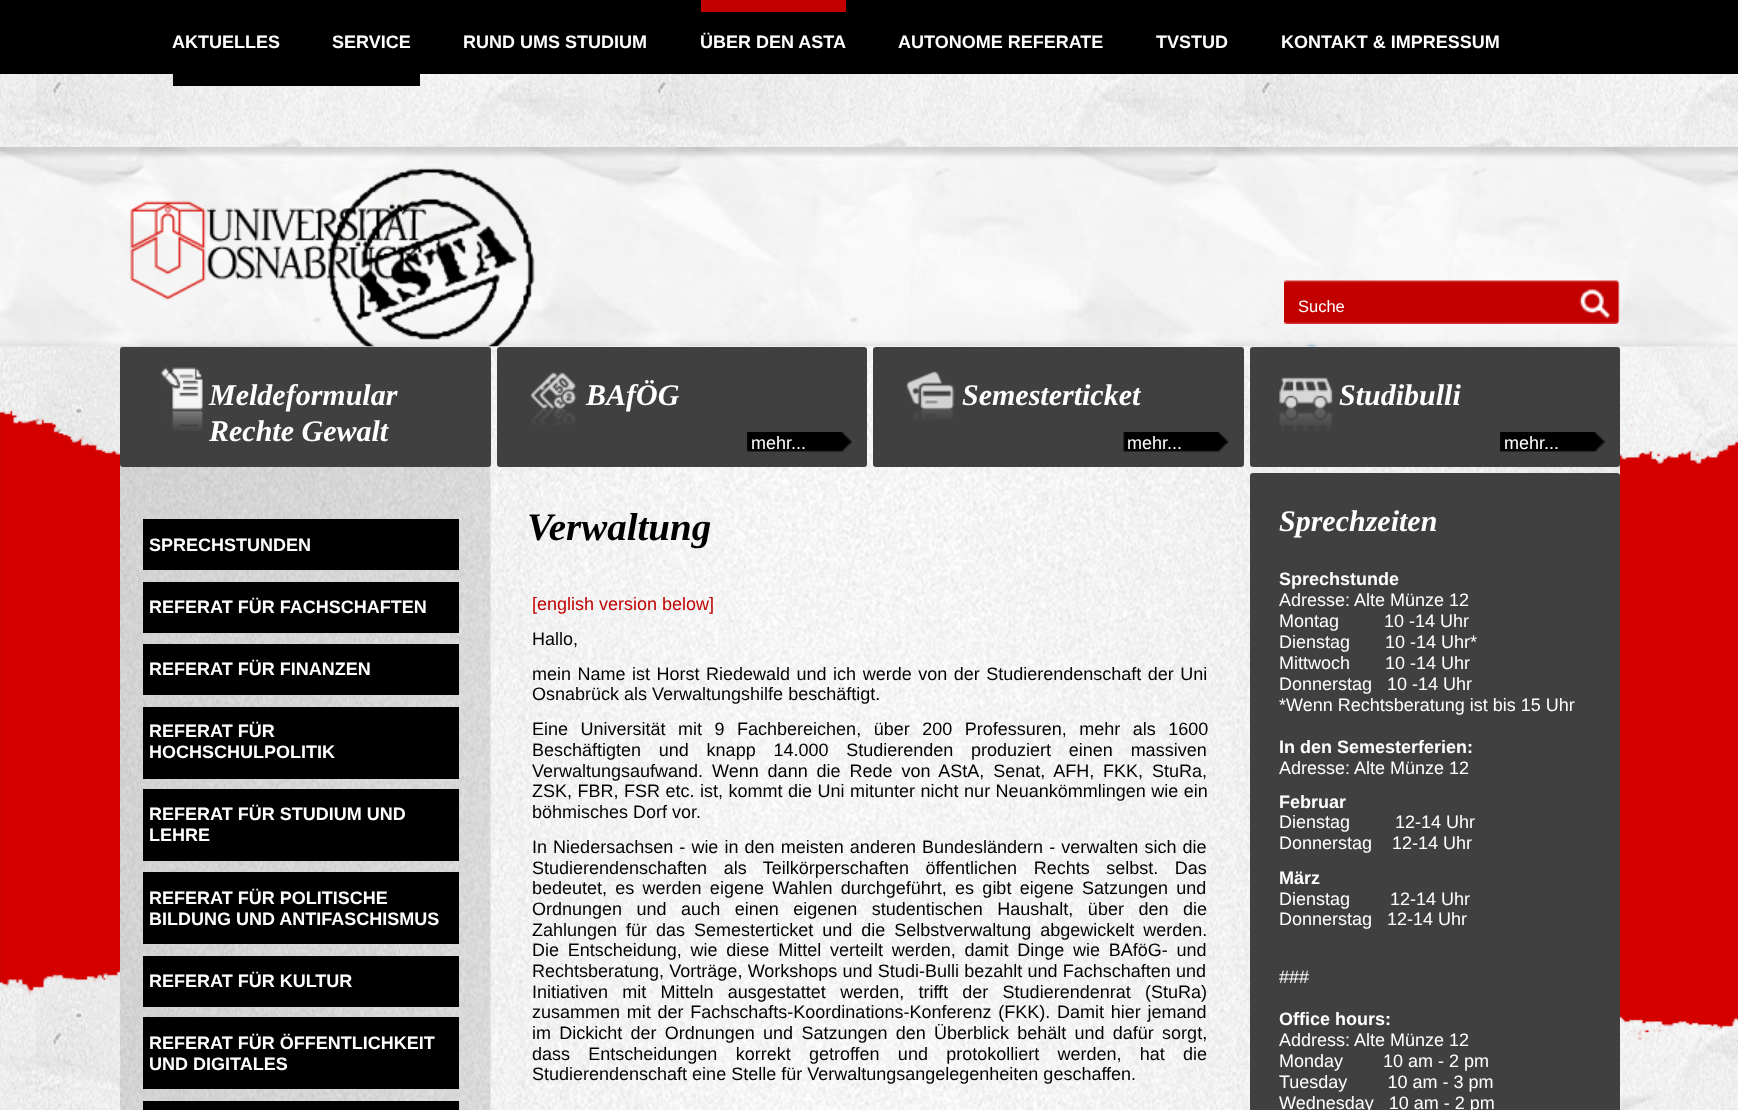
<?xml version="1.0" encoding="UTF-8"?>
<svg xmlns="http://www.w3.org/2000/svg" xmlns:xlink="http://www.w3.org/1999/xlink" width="1738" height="1110">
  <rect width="100%" height="100%" fill="#ffffff" />
  <image x="0" y="74" width="1738" height="273" xlink:href="image1.png" />
  <rect width="1738" height="74" fill="#000000" />
  <rect x="701" width="145" height="12" fill="#c30000" />
  <rect x="173" y="74" width="247" height="12" fill="#000000" />
  <image x="0" y="147" width="1738" height="200" xlink:href="image2.png" />
  <image x="130" y="167" width="405" height="180" xlink:href="image3.png" />
  <image x="1284" y="280" width="336" height="44" xlink:href="image4.png" />
  <image x="1304" y="343" width="16" height="4" xlink:href="image5.png" />
  <image x="0" y="346" width="1738" height="764" xlink:href="image6.png" />
  <image x="0" y="409" width="1738" height="631" xlink:href="image14.png" />
  <image x="120" y="346" width="1500" height="764" xlink:href="image7.png" />
  <rect x="120" y="347" width="371" height="120" rx="3" fill="#404040" />
  <image x="160" y="367" width="43" height="64" xlink:href="image8.png" />
  <rect x="497" y="347" width="370" height="120" rx="3" fill="#404040" />
  <image x="530" y="372" width="47" height="54" xlink:href="image9.png" />
  <image x="747" y="432" width="105" height="20" xlink:href="image10.png" />
  <rect x="873" y="347" width="371" height="120" rx="3" fill="#404040" />
  <image x="906" y="371" width="49" height="49" xlink:href="image11.png" />
  <image x="1123" y="432" width="106" height="20" xlink:href="image12.png" />
  <rect x="1250" y="347" width="370" height="120" rx="3" fill="#404040" />
  <image x="1279" y="377" width="54" height="54" xlink:href="image13.png" />
  <image x="1500" y="432" width="105" height="20" xlink:href="image10.png" />
  <rect x="143" y="519" width="316" height="51" fill="#000000" />
  <rect x="143" y="582" width="316" height="51" fill="#000000" />
  <rect x="143" y="644" width="316" height="51" fill="#000000" />
  <rect x="143" y="707" width="316" height="72" fill="#000000" />
  <rect x="143" y="789" width="316" height="72" fill="#000000" />
  <rect x="143" y="872" width="316" height="72" fill="#000000" />
  <rect x="143" y="956" width="316" height="51" fill="#000000" />
  <rect x="143" y="1017" width="316" height="72" fill="#000000" />
  <rect x="143" y="1101" width="316" height="9" fill="#000000" />
  <rect x="1250" y="473" width="370" height="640" rx="3" fill="#404040" />
  <text x="172" y="48" style="font-family: Liberation Sans; font-size: 18px; font-weight: bold; fill: #ffffff">AKTUELLES</text>
  <text x="332" y="48" style="font-family: Liberation Sans; font-size: 18px; font-weight: bold; fill: #ffffff">SERVICE</text>
  <text x="463" y="48" style="font-family: Liberation Sans; font-size: 18px; font-weight: bold; fill: #ffffff">RUND UMS STUDIUM</text>
  <text x="700" y="48" style="font-family: Liberation Sans; font-size: 18px; font-weight: bold; fill: #ffffff">ÜBER DEN ASTA</text>
  <text x="898" y="48" style="font-family: Liberation Sans; font-size: 18px; font-weight: bold; fill: #ffffff">AUTONOME REFERATE</text>
  <text x="1156" y="48" style="font-family: Liberation Sans; font-size: 18px; font-weight: bold; fill: #ffffff">TVSTUD</text>
  <text x="1281" y="48" style="font-family: Liberation Sans; font-size: 18px; font-weight: bold; fill: #ffffff">KONTAKT &amp; IMPRESSUM</text>
  <text x="1298" y="312" style="font-family: Liberation Sans; font-size: 16.5px; fill: #ffffff">Suche</text>
  <text x="209" y="405" style="font-family: Liberation Serif; font-size: 30px; font-weight: bold; font-style: italic; fill: #ffffff">Meldeformular</text>
  <text x="209" y="441" style="font-family: Liberation Serif; font-size: 30px; font-weight: bold; font-style: italic; fill: #ffffff">Rechte Gewalt</text>
  <text x="586" y="405" style="font-family: Liberation Serif; font-size: 30px; font-weight: bold; font-style: italic; fill: #ffffff">BAfÖG</text>
  <text x="751" y="449" style="font-family: Liberation Sans; font-size: 18px; fill: #ffffff">mehr...</text>
  <text x="962" y="405" style="font-family: Liberation Serif; font-size: 30px; font-weight: bold; font-style: italic; fill: #ffffff">Semesterticket</text>
  <text x="1127" y="449" style="font-family: Liberation Sans; font-size: 18px; fill: #ffffff">mehr...</text>
  <text x="1339" y="405" style="font-family: Liberation Serif; font-size: 30px; font-weight: bold; font-style: italic; fill: #ffffff">Studibulli</text>
  <text x="1504" y="449" style="font-family: Liberation Sans; font-size: 18px; fill: #ffffff">mehr...</text>
  <text x="149" y="551" style="font-family: Liberation Sans; font-size: 18px; font-weight: bold; fill: #ffffff">SPRECHSTUNDEN</text>
  <text x="149" y="613" style="font-family: Liberation Sans; font-size: 18px; font-weight: bold; fill: #ffffff">REFERAT FÜR FACHSCHAFTEN</text>
  <text x="149" y="675" style="font-family: Liberation Sans; font-size: 18px; font-weight: bold; fill: #ffffff">REFERAT FÜR FINANZEN</text>
  <text x="149" y="737" style="font-family: Liberation Sans; font-size: 18px; font-weight: bold; fill: #ffffff">REFERAT FÜR</text>
  <text x="149" y="758" style="font-family: Liberation Sans; font-size: 18px; font-weight: bold; fill: #ffffff">HOCHSCHULPOLITIK</text>
  <text x="149" y="820" style="font-family: Liberation Sans; font-size: 18px; font-weight: bold; fill: #ffffff">REFERAT FÜR STUDIUM UND</text>
  <text x="149" y="841" style="font-family: Liberation Sans; font-size: 18px; font-weight: bold; fill: #ffffff">LEHRE</text>
  <text x="149" y="904" style="font-family: Liberation Sans; font-size: 18px; font-weight: bold; fill: #ffffff">REFERAT FÜR POLITISCHE</text>
  <text x="149" y="925" style="font-family: Liberation Sans; font-size: 18px; font-weight: bold; fill: #ffffff">BILDUNG UND ANTIFASCHISMUS</text>
  <text x="149" y="987" style="font-family: Liberation Sans; font-size: 18px; font-weight: bold; fill: #ffffff">REFERAT FÜR KULTUR</text>
  <text x="149" y="1049" style="font-family: Liberation Sans; font-size: 18px; font-weight: bold; fill: #ffffff">REFERAT FÜR ÖFFENTLICHKEIT</text>
  <text x="149" y="1070" style="font-family: Liberation Sans; font-size: 18px; font-weight: bold; fill: #ffffff">UND DIGITALES</text>
  <text x="527" y="540" style="font-family: Liberation Serif; font-size: 39px; font-weight: bold; font-style: italic; fill: #000000">Verwaltung</text>
  <text x="532" y="610" style="font-family: Liberation Sans; font-size: 18px; fill: #c00000">[english version below]</text>
  <text x="532" y="645" style="font-family: Liberation Sans; font-size: 18px; fill: #000000">Hallo,</text>
  <text x="532" y="680" word-spacing="1.5" style="font-family: Liberation Sans; font-size: 18px; fill: #000000">mein Name ist Horst Riedewald und ich werde von der Studierendenschaft der Uni</text>
  <text x="532" y="700" style="font-family: Liberation Sans; font-size: 18px; fill: #000000">Osnabrück als Verwaltungshilfe beschäftigt.</text>
  <text x="532" y="735" word-spacing="7.5" style="font-family: Liberation Sans; font-size: 18px; fill: #000000">Eine Universität mit 9 Fachbereichen, über 200 Professuren, mehr als 1600</text>
  <text x="532" y="756" word-spacing="12.75" style="font-family: Liberation Sans; font-size: 18px; fill: #000000">Beschäftigten und knapp 14.000 Studierenden produziert einen massiven</text>
  <text x="532" y="777" word-spacing="3.9" style="font-family: Liberation Sans; font-size: 18px; fill: #000000">Verwaltungsaufwand. Wenn dann die Rede von AStA, Senat, AFH, FKK, StuRa,</text>
  <text x="532" y="797" word-spacing="0.5" style="font-family: Liberation Sans; font-size: 18px; fill: #000000">ZSK, FBR, FSR etc. ist, kommt die Uni mitunter nicht nur Neuankömmlingen wie ein</text>
  <text x="532" y="818" style="font-family: Liberation Sans; font-size: 18px; fill: #000000">böhmisches Dorf vor.</text>
  <text x="532" y="853" word-spacing="1.1" style="font-family: Liberation Sans; font-size: 18px; fill: #000000">In Niedersachsen - wie in den meisten anderen Bundesländern - verwalten sich die</text>
  <text x="532" y="874" word-spacing="11.5" style="font-family: Liberation Sans; font-size: 18px; fill: #000000">Studierendenschaften als Teilkörperschaften öffentlichen Rechts selbst. Das</text>
  <text x="532" y="894" word-spacing="3.25" style="font-family: Liberation Sans; font-size: 18px; fill: #000000">bedeutet, es werden eigene Wahlen durchgeführt, es gibt eigene Satzungen und</text>
  <text x="532" y="915" word-spacing="9.5" style="font-family: Liberation Sans; font-size: 18px; fill: #000000">Ordnungen und auch einen eigenen studentischen Haushalt, über den die</text>
  <text x="532" y="936" word-spacing="4" style="font-family: Liberation Sans; font-size: 18px; fill: #000000">Zahlungen für das Semesterticket und die Selbstverwaltung abgewickelt werden.</text>
  <text x="532" y="956" word-spacing="3.75" style="font-family: Liberation Sans; font-size: 18px; fill: #000000">Die Entscheidung, wie diese Mittel verteilt werden, damit Dinge wie BAföG- und</text>
  <text x="532" y="977" word-spacing="0.25" style="font-family: Liberation Sans; font-size: 18px; fill: #000000">Rechtsberatung, Vorträge, Workshops und Studi-Bulli bezahlt und Fachschaften und</text>
  <text x="532" y="998" word-spacing="9.25" style="font-family: Liberation Sans; font-size: 18px; fill: #000000">Initiativen mit Mitteln ausgestattet werden, trifft der Studierendenrat (StuRa)</text>
  <text x="532" y="1018" word-spacing="1.75" style="font-family: Liberation Sans; font-size: 18px; fill: #000000">zusammen mit der Fachschafts-Koordinations-Konferenz (FKK). Damit hier jemand</text>
  <text x="532" y="1039" word-spacing="3.25" style="font-family: Liberation Sans; font-size: 18px; fill: #000000">im Dickicht der Ordnungen und Satzungen den Überblick behält und dafür sorgt,</text>
  <text x="532" y="1060" word-spacing="13.25" style="font-family: Liberation Sans; font-size: 18px; fill: #000000">dass Entscheidungen korrekt getroffen und protokolliert werden, hat die</text>
  <text x="532" y="1080" style="font-family: Liberation Sans; font-size: 18px; fill: #000000">Studierendenschaft eine Stelle für Verwaltungsangelegenheiten geschaffen.</text>
  <text x="1279" y="531" style="font-family: Liberation Serif; font-size: 30px; font-weight: bold; font-style: italic; fill: #ffffff">Sprechzeiten</text>
  <text x="1279" y="585" style="font-family: Liberation Sans; font-size: 18px; font-weight: bold; fill: #ffffff">Sprechstunde</text>
  <text x="1279" y="606" style="font-family: Liberation Sans; font-size: 18px; fill: #ffffff">Adresse: Alte Münze 12</text>
  <text x="1279" y="627" style="font-family: Liberation Sans; font-size: 18px; fill: #ffffff" xml:space="preserve">Montag         10 -14 Uhr</text>
  <text x="1279" y="648" style="font-family: Liberation Sans; font-size: 18px; fill: #ffffff" xml:space="preserve">Dienstag       10 -14 Uhr*</text>
  <text x="1279" y="669" style="font-family: Liberation Sans; font-size: 18px; fill: #ffffff" xml:space="preserve">Mittwoch       10 -14 Uhr</text>
  <text x="1279" y="690" style="font-family: Liberation Sans; font-size: 18px; fill: #ffffff" xml:space="preserve">Donnerstag   10 -14 Uhr</text>
  <text x="1279" y="711" style="font-family: Liberation Sans; font-size: 18px; fill: #ffffff">*Wenn Rechtsberatung ist bis 15 Uhr</text>
  <text x="1279" y="753" style="font-family: Liberation Sans; font-size: 18px; font-weight: bold; fill: #ffffff">In den Semesterferien:</text>
  <text x="1279" y="774" style="font-family: Liberation Sans; font-size: 18px; fill: #ffffff">Adresse: Alte Münze 12</text>
  <text x="1279" y="808" style="font-family: Liberation Sans; font-size: 18px; font-weight: bold; fill: #ffffff">Februar</text>
  <text x="1279" y="828" style="font-family: Liberation Sans; font-size: 18px; fill: #ffffff">Dienstag</text>
  <text x="1395" y="828" style="font-family: Liberation Sans; font-size: 18px; fill: #ffffff">12-14 Uhr</text>
  <text x="1279" y="849" style="font-family: Liberation Sans; font-size: 18px; fill: #ffffff" xml:space="preserve">Donnerstag    12-14 Uhr</text>
  <text x="1279" y="884" style="font-family: Liberation Sans; font-size: 18px; font-weight: bold; fill: #ffffff">März</text>
  <text x="1279" y="905" style="font-family: Liberation Sans; font-size: 18px; fill: #ffffff" xml:space="preserve">Dienstag        12-14 Uhr</text>
  <text x="1279" y="925" style="font-family: Liberation Sans; font-size: 18px; fill: #ffffff" xml:space="preserve">Donnerstag   12-14 Uhr</text>
  <text x="1279" y="983" style="font-family: Liberation Sans; font-size: 18px; fill: #ffffff">###</text>
  <text x="1279" y="1025" style="font-family: Liberation Sans; font-size: 18px; font-weight: bold; fill: #ffffff">Office hours:</text>
  <text x="1279" y="1046" style="font-family: Liberation Sans; font-size: 18px; fill: #ffffff">Address: Alte Münze 12</text>
  <text x="1279" y="1067" style="font-family: Liberation Sans; font-size: 18px; fill: #ffffff" xml:space="preserve">Monday        10 am - 2 pm</text>
  <text x="1279" y="1088" style="font-family: Liberation Sans; font-size: 18px; fill: #ffffff" xml:space="preserve">Tuesday        10 am - 3 pm</text>
  <text x="1279" y="1109" style="font-family: Liberation Sans; font-size: 18px; fill: #ffffff" xml:space="preserve">Wednesday   10 am - 2 pm</text>
</svg>
